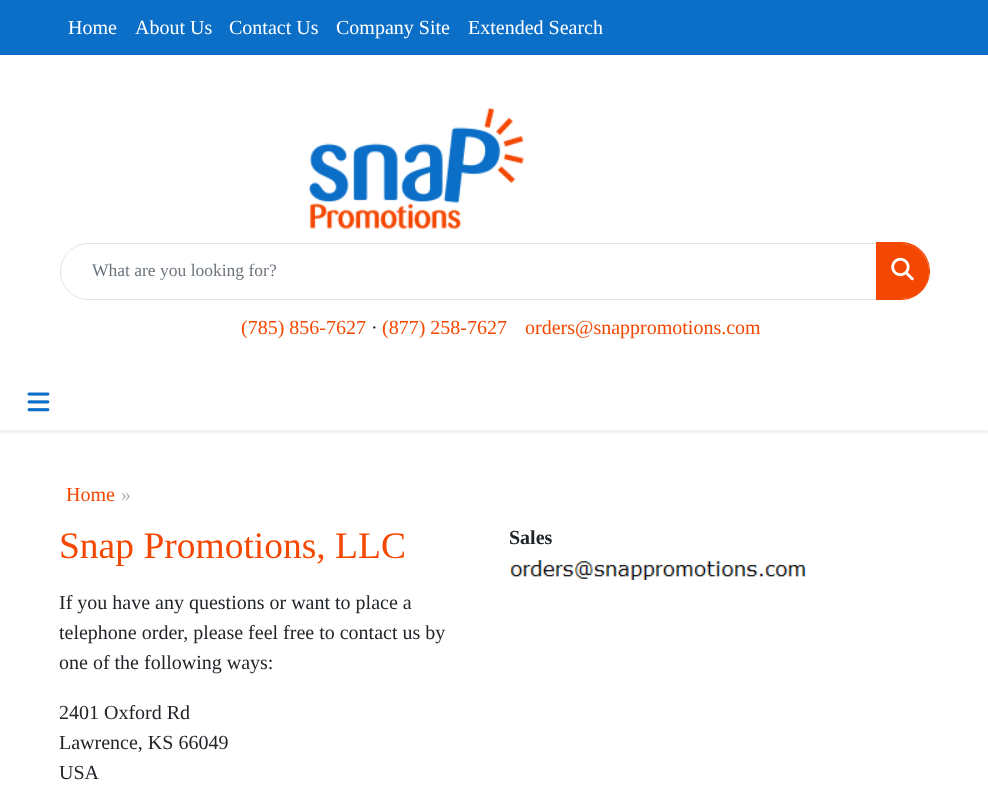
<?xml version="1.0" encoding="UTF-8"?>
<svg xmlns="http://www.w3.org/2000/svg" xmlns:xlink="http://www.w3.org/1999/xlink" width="988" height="797">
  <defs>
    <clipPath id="clip1"><rect x="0" y="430" width="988" height="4" /></clipPath>
  </defs>
  <rect width="100%" height="100%" fill="#ffffff" />
  <rect width="988" height="55" fill="#0b6ec7" />
  <image x="308" y="107" width="216" height="122" xlink:href="image1.png" />
  <path d="M 88.5 243.5 h 789 v 56 h -789 c -15.5 0 -28 -12.5 -28 -28 c 0 -15.5 12.5 -28 28 -28 z" fill="none" stroke="#e4e4e4" />
  <path d="M 876 244 h 25.5 c 15 0 27.5 12.5 27.5 27.5 c 0 15 -12.5 27.5 -27.5 27.5 h -25.5 z" fill="#f44802" />
  <path d="M 876 242 h 25 c 16 0 29 13 29 29 c 0 16 -13 29 -29 29 h -25 z m 0 2 h 25 c 15 0 28 12 28 27 c 0 15 -13 28 -28 28 h -25 z" fill="#f44802" fill-rule="evenodd" />
  <image x="891" y="257" width="23" height="24" xlink:href="image2.png" />
  <g clip-path="url(#clip1)">
    <rect y="378" width="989" height="55" fill="#000000" fill-opacity="0.07" filter="blur(2.5px)" />
  </g>
  <image x="27" y="392" width="23" height="20" xlink:href="image3.png" />
  <image x="510" y="559" width="296" height="21" xlink:href="image4.png" />
  <text x="68" y="34" style="font-family: Liberation Serif; font-size: 20px; fill: #ffffff">Home</text>
  <text x="135" y="34" style="font-family: Liberation Serif; font-size: 20px; fill: #ffffff">About Us</text>
  <text x="229" y="34" style="font-family: Liberation Serif; font-size: 20px; fill: #ffffff">Contact Us</text>
  <text x="336" y="34" style="font-family: Liberation Serif; font-size: 20px; fill: #ffffff">Company Site</text>
  <text x="468" y="34" style="font-family: Liberation Serif; font-size: 20px; fill: #ffffff">Extended Search</text>
  <text x="92" y="276" style="font-family: Liberation Serif; font-size: 17.5px; fill: #6c757d">What are you looking for?</text>
  <text x="241" y="334" style="font-family: Liberation Serif; font-size: 20px; fill: #f44802">(785) 856-7627</text>
  <text x="371" y="334" style="font-family: Liberation Serif; font-size: 20px; fill: #212529">·</text>
  <text x="382" y="334" style="font-family: Liberation Serif; font-size: 20px; fill: #f44802">(877) 258-7627</text>
  <text x="525" y="334" style="font-family: Liberation Serif; font-size: 20px; fill: #f44802">orders@snappromotions.com</text>
  <text x="66" y="501" style="font-family: Liberation Serif; font-size: 20px; fill: #f44802">Home</text>
  <text x="121" y="501" style="font-family: Liberation Serif; font-size: 20px; fill: #b2b1b1">»</text>
  <text x="59" y="558" style="font-family: Liberation Serif; font-size: 37.5px; fill: #f44802">Snap Promotions, LLC</text>
  <text x="59" y="609" style="font-family: Liberation Serif; font-size: 20px; fill: #212529">If you have any questions or want to place a</text>
  <text x="59" y="639" style="font-family: Liberation Serif; font-size: 20px; fill: #212529">telephone order, please feel free to contact us by</text>
  <text x="59" y="669" style="font-family: Liberation Serif; font-size: 20px; fill: #212529">one of the following ways:</text>
  <text x="59" y="719" style="font-family: Liberation Serif; font-size: 20px; fill: #212529">2401 Oxford Rd</text>
  <text x="59" y="749" style="font-family: Liberation Serif; font-size: 20px; fill: #212529">Lawrence, KS 66049</text>
  <text x="59" y="779" style="font-family: Liberation Serif; font-size: 20px; fill: #212529">USA</text>
  <text x="509" y="544" style="font-family: Liberation Serif; font-size: 20px; font-weight: bold; fill: #212529">Sales</text>
</svg>
